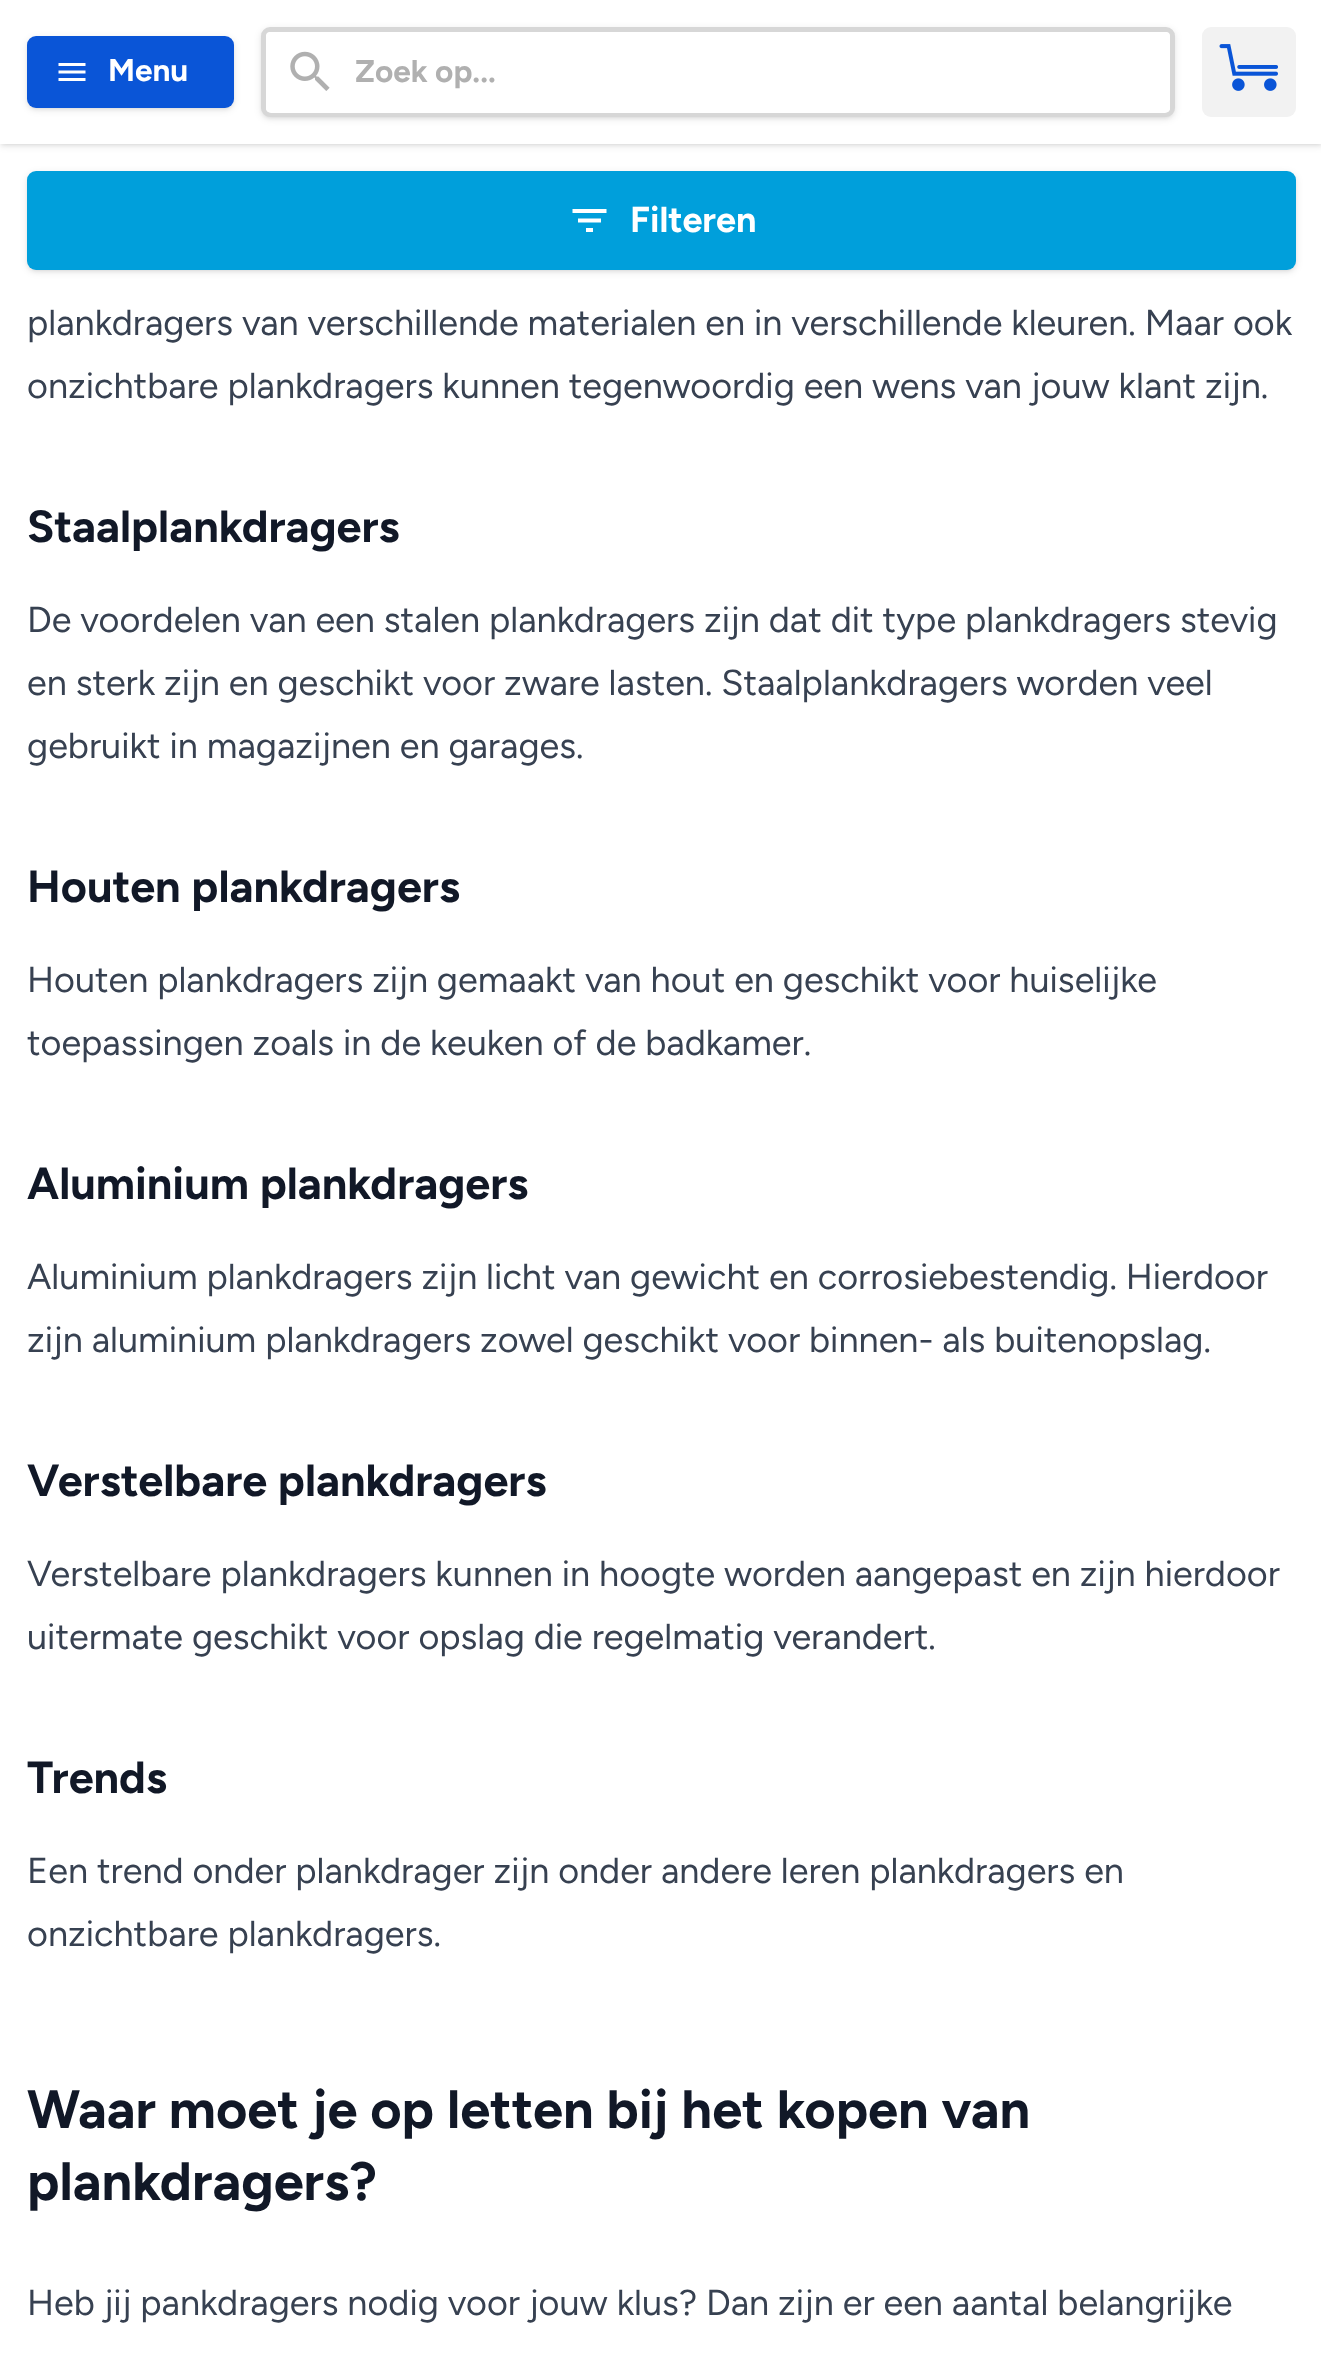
<?xml version="1.0" encoding="UTF-8"?>
<svg xmlns="http://www.w3.org/2000/svg" xmlns:xlink="http://www.w3.org/1999/xlink" width="1321" height="2360">
  <rect width="100%" height="100%" fill="#ffffff" />
  <rect x="2" y="5" width="1319" height="139" fill="#000000" fill-opacity="0.1" filter="blur(2px)" />
  <rect y="2" width="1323" height="144" fill="#000000" fill-opacity="0.1" filter="blur(3.5px)" />
  <rect width="1321" height="144" fill="#ffffff" />
  <rect x="29" y="41" width="203" height="67" rx="7" fill="#000000" fill-opacity="0.1" filter="blur(2px)" />
  <rect x="27" y="38" width="207" height="72" rx="9" fill="#000000" fill-opacity="0.1" filter="blur(3.5px)" />
  <rect x="27" y="36" width="207" height="72" rx="9" fill="#0a55d7" />
  <image x="58" y="63" width="28" height="18" xlink:href="image1.png" />
  <rect x="263" y="32" width="909" height="85" rx="7" fill="#000000" fill-opacity="0.1" filter="blur(2px)" />
  <rect x="261" y="29" width="914" height="90" rx="9" fill="#000000" fill-opacity="0.1" filter="blur(3.5px)" />
  <rect x="263.5" y="29.5" width="909" height="85" rx="6.5" fill="#ffffff" stroke="#d7d7d7" stroke-width="5" />
  <rect x="266" y="32" width="904" height="81" rx="5" fill="#ffffff" />
  <image x="290" y="51" width="40" height="40" xlink:href="image2.png" />
  <rect x="1202" y="27" width="94" height="90" rx="9" fill="#f2f2f2" />
  <image x="1219" y="44" width="59" height="47" xlink:href="image3.png" />
  <rect x="29" y="176" width="1265" height="94" rx="7" fill="#000000" fill-opacity="0.1" filter="blur(2px)" />
  <rect x="27" y="173" width="1269" height="99" rx="9" fill="#000000" fill-opacity="0.1" filter="blur(3.5px)" />
  <rect x="27" y="171" width="1269" height="99" rx="9" fill="#009fdb" />
  <path d="M 586 232 h 7 v -4 h -7 z m -13.5 -23 v 4 h 34 v -4 z m 5.5 13.5 h 23 v -4 h -23 z" fill="#ffffff" />
  <text x="108" y="81" style="font-family: Figtree; font-size: 31.5px; font-weight: bold; fill: #ffffff">Menu</text>
  <text x="355" y="82" style="font-family: Figtree; font-size: 31.5px; font-weight: bold; fill: #b0b0b0">Zoek op...</text>
  <text x="630" y="232" style="font-family: Figtree; font-size: 36px; font-weight: bold; fill: #ffffff">Filteren</text>
  <text x="27" y="335" style="font-family: Figtree; font-size: 36px; fill: #374151">plankdragers van verschillende materialen en in verschillende kleuren. Maar ook</text>
  <text x="27" y="398" style="font-family: Figtree; font-size: 36px; fill: #374151">onzichtbare plankdragers kunnen tegenwoordig een wens van jouw klant zijn.</text>
  <text x="27" y="542" style="font-family: Figtree; font-size: 45px; font-weight: bold; fill: #111827">Staalplankdragers</text>
  <text x="27" y="632" style="font-family: Figtree; font-size: 36px; fill: #374151">De voordelen van een stalen plankdragers zijn dat dit type plankdragers stevig</text>
  <text x="27" y="695" style="font-family: Figtree; font-size: 36px; fill: #374151">en sterk zijn en geschikt voor zware lasten. Staalplankdragers worden veel</text>
  <text x="27" y="758" style="font-family: Figtree; font-size: 36px; fill: #374151">gebruikt in magazijnen en garages.</text>
  <text x="27" y="902" style="font-family: Figtree; font-size: 45px; font-weight: bold; fill: #111827">Houten plankdragers</text>
  <text x="27" y="992" style="font-family: Figtree; font-size: 36px; fill: #374151">Houten plankdragers zijn gemaakt van hout en geschikt voor huiselijke</text>
  <text x="27" y="1055" style="font-family: Figtree; font-size: 36px; fill: #374151">toepassingen zoals in de keuken of de badkamer.</text>
  <text x="27" y="1199" style="font-family: Figtree; font-size: 45px; font-weight: bold; fill: #111827">Aluminium plankdragers</text>
  <text x="27" y="1289" style="font-family: Figtree; font-size: 36px; fill: #374151">Aluminium plankdragers zijn licht van gewicht en corrosiebestendig. Hierdoor</text>
  <text x="27" y="1352" style="font-family: Figtree; font-size: 36px; fill: #374151">zijn aluminium plankdragers zowel geschikt voor binnen- als buitenopslag.</text>
  <text x="27" y="1496" style="font-family: Figtree; font-size: 45px; font-weight: bold; fill: #111827">Verstelbare plankdragers</text>
  <text x="27" y="1586" style="font-family: Figtree; font-size: 36px; fill: #374151">Verstelbare plankdragers kunnen in hoogte worden aangepast en zijn hierdoor</text>
  <text x="27" y="1649" style="font-family: Figtree; font-size: 36px; fill: #374151">uitermate geschikt voor opslag die regelmatig verandert.</text>
  <text x="27" y="1793" style="font-family: Figtree; font-size: 45px; font-weight: bold; fill: #111827">Trends</text>
  <text x="27" y="1883" style="font-family: Figtree; font-size: 36px; fill: #374151">Een trend onder plankdrager zijn onder andere leren plankdragers en</text>
  <text x="27" y="1946" style="font-family: Figtree; font-size: 36px; fill: #374151">onzichtbare plankdragers.</text>
  <text x="27" y="2128" style="font-family: Figtree; font-size: 54px; font-weight: bold; fill: #111827">Waar moet je op letten bij het kopen van</text>
  <text x="27" y="2200" style="font-family: Figtree; font-size: 54px; font-weight: bold; fill: #111827">plankdragers?</text>
  <text x="27" y="2315" style="font-family: Figtree; font-size: 36px; fill: #374151">Heb jij pankdragers nodig voor jouw klus? Dan zijn er een aantal belangrijke</text>
</svg>
